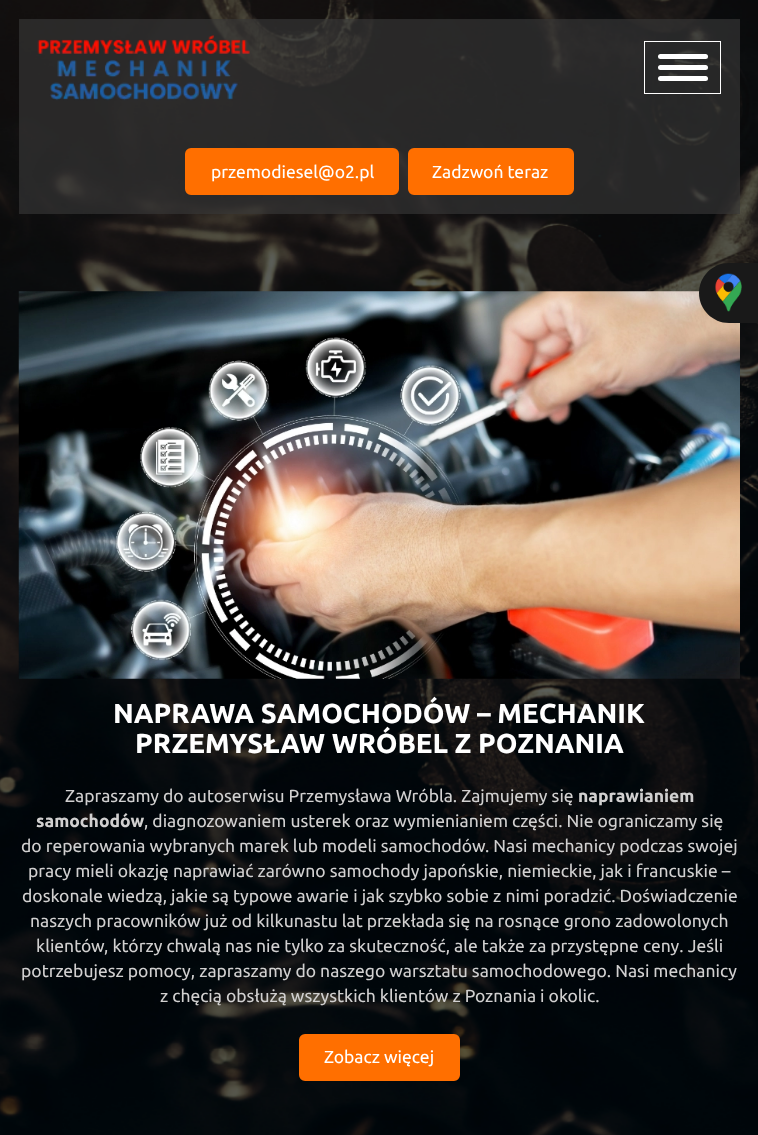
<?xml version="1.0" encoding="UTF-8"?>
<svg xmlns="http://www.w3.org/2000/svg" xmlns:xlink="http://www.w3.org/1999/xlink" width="758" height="1135">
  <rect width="100%" height="100%" fill="#ffffff" />
  <image x="0" y="0" width="758" height="1135" xlink:href="image1.png" />
  <rect x="19" y="19" width="721" height="195" fill="#383838" fill-opacity="0.65" />
  <image x="37" y="35" width="213" height="66" xlink:href="image2.png" />
  <rect x="644.5" y="41.5" width="76" height="52" fill="none" stroke="#ffffff" />
  <rect x="658" y="54" width="50" height="5" rx="2.5" fill="#ffffff" />
  <rect x="658" y="65" width="50" height="5" rx="2.5" fill="#ffffff" />
  <rect x="658" y="76" width="50" height="5" rx="2.5" fill="#ffffff" />
  <rect x="186.5" y="149.5" width="211" height="44" rx="4.5" fill="#ff6f00" stroke="#ff6f00" stroke-width="3" />
  <rect x="409.5" y="149.5" width="163" height="44" rx="4.5" fill="#ff6f00" stroke="#ff6f00" stroke-width="3" />
  <image x="18" y="291" width="722" height="388" xlink:href="image4.png" />
  <path d="M 729 263 h 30 v 60 h -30 c -16.5 0 -30 -13.5 -30 -30 c 0 -16.5 13.5 -30 30 -30 z" fill="#191919" />
  <image x="715" y="273" width="27" height="39" xlink:href="image3.png" />
  <rect x="300.5" y="1035.5" width="158" height="44" rx="4.5" fill="#ff6f00" stroke="#ff6f00" stroke-width="3" />
  <text x="211" y="178" style="font-family: Ubuntu; font-size: 17.5px; fill: #ffffff">przemodiesel@o2.pl</text>
  <text x="432" y="178" style="font-family: Ubuntu; font-size: 17.5px; fill: #ffffff">Zadzwoń teraz</text>
  <text x="113" y="723" style="font-family: Ubuntu; font-size: 27.5px; font-weight: bold; fill: #ffffff">NAPRAWA SAMOCHODÓW – MECHANIK</text>
  <text x="135" y="753" style="font-family: Ubuntu; font-size: 27.5px; font-weight: bold; fill: #ffffff">PRZEMYSŁAW WRÓBEL Z POZNANIA</text>
  <text x="65" y="802" style="font-family: Ubuntu; font-size: 17.5px; fill: #d1d0d0">Zapraszamy do autoserwisu Przemysława Wróbla. Zajmujemy się</text>
  <text x="578" y="802" style="font-family: Ubuntu; font-size: 17.5px; font-weight: bold; fill: #d1d0d0">naprawianiem</text>
  <text x="36" y="827" style="font-family: Ubuntu; font-size: 17.5px; font-weight: bold; fill: #d1d0d0">samochodów</text>
  <text x="144" y="827" style="font-family: Ubuntu; font-size: 17.5px; fill: #d1d0d0">, diagnozowaniem usterek oraz wymienianiem części. Nie ograniczamy się</text>
  <text x="21" y="852" style="font-family: Ubuntu; font-size: 17.5px; fill: #d1d0d0">do reperowania wybranych marek lub modeli samochodów. Nasi mechanicy podczas swojej</text>
  <text x="28" y="877" style="font-family: Ubuntu; font-size: 17.5px; fill: #d1d0d0">pracy mieli okazję naprawiać zarówno samochody japońskie, niemieckie, jak i francuskie –</text>
  <text x="22" y="902" style="font-family: Ubuntu; font-size: 17.5px; fill: #d1d0d0">doskonale wiedzą, jakie są typowe awarie i jak szybko sobie z nimi poradzić. Doświadczenie</text>
  <text x="30" y="927" style="font-family: Ubuntu; font-size: 17.5px; fill: #d1d0d0">naszych pracowników już od kilkunastu lat przekłada się na rosnące grono zadowolonych</text>
  <text x="36" y="952" style="font-family: Ubuntu; font-size: 17.5px; fill: #d1d0d0">klientów, którzy chwalą nas nie tylko za skuteczność, ale także za przystępne ceny. Jeśli</text>
  <text x="21" y="977" style="font-family: Ubuntu; font-size: 17.5px; fill: #d1d0d0">potrzebujesz pomocy, zapraszamy do naszego warsztatu samochodowego. Nasi mechanicy</text>
  <text x="160" y="1002" style="font-family: Ubuntu; font-size: 17.5px; fill: #d1d0d0">z chęcią obsłużą wszystkich klientów z Poznania i okolic.</text>
  <text x="324" y="1063" style="font-family: Ubuntu; font-size: 17.5px; fill: #ffffff">Zobacz więcej</text>
</svg>
